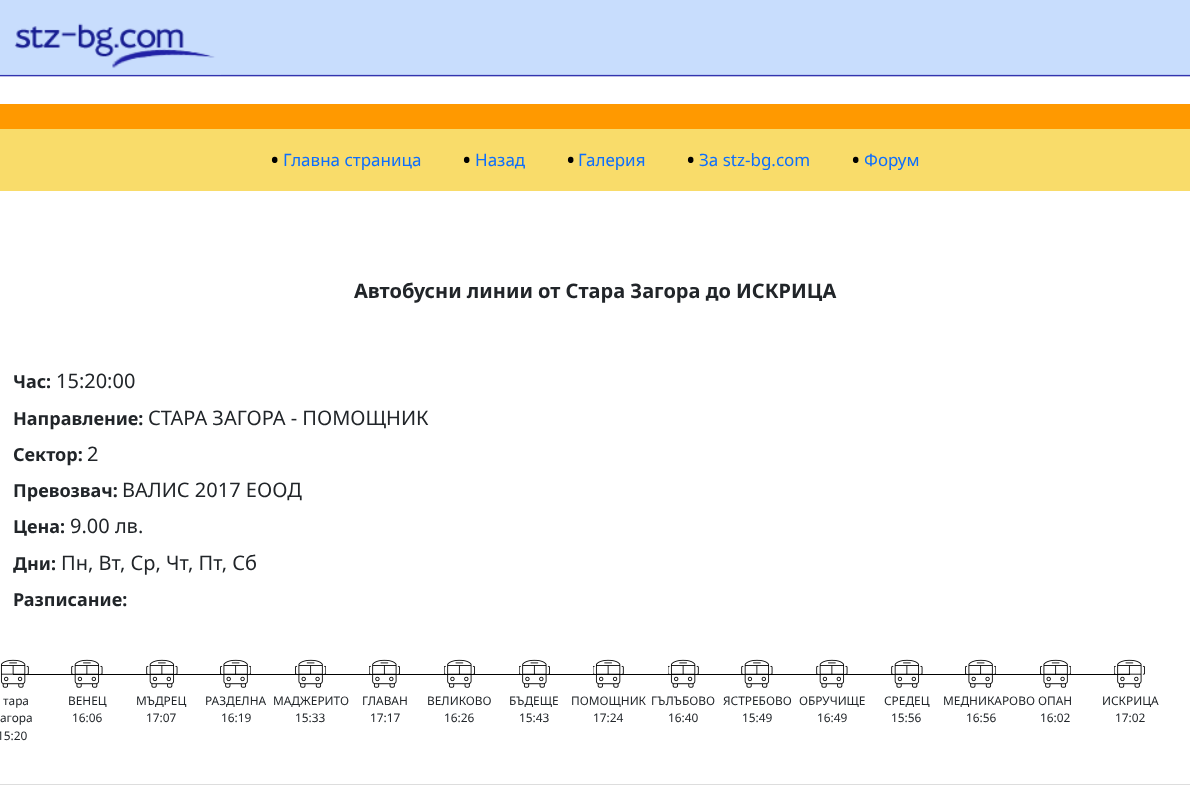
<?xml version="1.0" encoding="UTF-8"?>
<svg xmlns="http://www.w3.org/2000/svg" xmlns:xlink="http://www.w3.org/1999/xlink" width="1190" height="790">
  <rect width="100%" height="100%" fill="#ffffff" />
  <image x="0" y="0" width="1190" height="77" xlink:href="image1.png" />
  <image x="0" y="23" width="221" height="52" xlink:href="image2.png" />
  <rect y="104" width="1190" height="25" fill="#ff9900" />
  <rect y="129" width="1190" height="62" fill="#f9dc6a" />
  <rect y="784" width="1190" height="1" fill="#dddddd" />
  <rect x="13" y="674" width="1117" height="1" fill="#000000" />
  <image x="0" y="659" width="29" height="29" xlink:href="image3.png" />
  <image x="71" y="659" width="32" height="29" xlink:href="image4.png" />
  <image x="146" y="659" width="32" height="29" xlink:href="image4.png" />
  <image x="220" y="659" width="31" height="29" xlink:href="image5.png" />
  <image x="295" y="659" width="31" height="29" xlink:href="image5.png" />
  <image x="369" y="659" width="31" height="29" xlink:href="image6.png" />
  <image x="444" y="659" width="31" height="29" xlink:href="image6.png" />
  <image x="519" y="659" width="31" height="29" xlink:href="image6.png" />
  <image x="593" y="659" width="31" height="29" xlink:href="image7.png" />
  <image x="668" y="659" width="31" height="29" xlink:href="image7.png" />
  <image x="741" y="659" width="32" height="29" xlink:href="image4.png" />
  <image x="816" y="659" width="32" height="29" xlink:href="image4.png" />
  <image x="891" y="659" width="32" height="29" xlink:href="image4.png" />
  <image x="965" y="659" width="31" height="29" xlink:href="image5.png" />
  <image x="1114" y="659" width="31" height="29" xlink:href="image8.png" />
  <image x="1040" y="659" width="31" height="29" xlink:href="image5.png" />
  <text x="270" y="169" style="font-family: Noto Sans; font-size: 25px; fill: #000000">•</text>
  <text x="283" y="166" style="font-family: Noto Sans; font-size: 17px; fill: #0d6efd">Главна страница</text>
  <text x="462" y="169" style="font-family: Noto Sans; font-size: 25px; fill: #000000">•</text>
  <text x="475" y="166" style="font-family: Noto Sans; font-size: 17px; fill: #0d6efd">Назад</text>
  <text x="566" y="169" style="font-family: Noto Sans; font-size: 25px; fill: #000000">•</text>
  <text x="578" y="166" style="font-family: Noto Sans; font-size: 17px; fill: #0d6efd">Галерия</text>
  <text x="686" y="169" style="font-family: Noto Sans; font-size: 25px; fill: #000000">•</text>
  <text x="699" y="166" style="font-family: Noto Sans; font-size: 17px; fill: #0d6efd">За stz-bg.com</text>
  <text x="851" y="169" style="font-family: Noto Sans; font-size: 25px; fill: #000000">•</text>
  <text x="864" y="166" style="font-family: Noto Sans; font-size: 17px; fill: #0d6efd">Форум</text>
  <text x="354" y="298" style="font-family: Noto Sans; font-size: 20px; font-weight: bold; fill: #212529">Автобусни линии от Стара Загора до ИСКРИЦА</text>
  <text x="13" y="388" style="font-family: Noto Sans; font-size: 18px; font-weight: bold; fill: #212529">Час:</text>
  <text x="56" y="388" style="font-family: Noto Sans; font-size: 20px; fill: #212529">15:20:00</text>
  <text x="13" y="425" style="font-family: Noto Sans; font-size: 18px; font-weight: bold; fill: #212529">Направление:</text>
  <text x="148" y="425" style="font-family: Noto Sans; font-size: 20px; fill: #212529">СТАРА ЗАГОРА - ПОМОЩНИК</text>
  <text x="13" y="461" style="font-family: Noto Sans; font-size: 18px; font-weight: bold; fill: #212529">Сектор:</text>
  <text x="87" y="461" style="font-family: Noto Sans; font-size: 20px; fill: #212529">2</text>
  <text x="13" y="497" style="font-family: Noto Sans; font-size: 18px; font-weight: bold; fill: #212529">Превозвач:</text>
  <text x="122" y="497" style="font-family: Noto Sans; font-size: 20px; fill: #212529">ВАЛИС 2017 ЕООД</text>
  <text x="13" y="533" style="font-family: Noto Sans; font-size: 18px; font-weight: bold; fill: #212529">Цена:</text>
  <text x="70" y="533" style="font-family: Noto Sans; font-size: 20px; fill: #212529">9.00 лв.</text>
  <text x="13" y="570" style="font-family: Noto Sans; font-size: 18px; font-weight: bold; fill: #212529">Дни:</text>
  <text x="61" y="570" style="font-family: Noto Sans; font-size: 20px; fill: #212529">Пн, Вт, Ср, Чт, Пт, Сб</text>
  <text x="13" y="606" style="font-family: Noto Sans; font-size: 18px; font-weight: bold; fill: #212529">Разписание:</text>
  <text x="3" y="705" style="font-family: Noto Sans; font-size: 11.9px; fill: #212529">тара</text>
  <text x="0" y="722" style="font-family: Noto Sans; font-size: 11.9px; fill: #212529">агора</text>
  <text x="-3" y="740" style="font-family: Noto Sans; font-size: 11.9px; fill: #212529">15:20</text>
  <text x="68" y="705" style="font-family: Noto Sans; font-size: 11.9px; fill: #212529">ВЕНЕЦ</text>
  <text x="72" y="722" style="font-family: Noto Sans; font-size: 11.9px; fill: #212529">16:06</text>
  <text x="136" y="705" style="font-family: Noto Sans; font-size: 11.9px; fill: #212529">МЪДРЕЦ</text>
  <text x="146" y="722" style="font-family: Noto Sans; font-size: 11.9px; fill: #212529">17:07</text>
  <text x="205" y="705" style="font-family: Noto Sans; font-size: 11.9px; fill: #212529">РАЗДЕЛНА</text>
  <text x="221" y="722" style="font-family: Noto Sans; font-size: 11.9px; fill: #212529">16:19</text>
  <text x="273" y="705" style="font-family: Noto Sans; font-size: 11.9px; fill: #212529">МАДЖЕРИТО</text>
  <text x="295" y="722" style="font-family: Noto Sans; font-size: 11.9px; fill: #212529">15:33</text>
  <text x="362" y="705" style="font-family: Noto Sans; font-size: 11.9px; fill: #212529">ГЛАВАН</text>
  <text x="370" y="722" style="font-family: Noto Sans; font-size: 11.9px; fill: #212529">17:17</text>
  <text x="427" y="705" style="font-family: Noto Sans; font-size: 11.9px; fill: #212529">ВЕЛИКОВО</text>
  <text x="444" y="722" style="font-family: Noto Sans; font-size: 11.9px; fill: #212529">16:26</text>
  <text x="509" y="705" style="font-family: Noto Sans; font-size: 11.9px; fill: #212529">БЪДЕЩЕ</text>
  <text x="519" y="722" style="font-family: Noto Sans; font-size: 11.9px; fill: #212529">15:43</text>
  <text x="571" y="705" style="font-family: Noto Sans; font-size: 11.9px; fill: #212529">ПОМОЩНИК</text>
  <text x="593" y="722" style="font-family: Noto Sans; font-size: 11.9px; fill: #212529">17:24</text>
  <text x="651" y="705" style="font-family: Noto Sans; font-size: 11.9px; fill: #212529">ГЪЛЪБОВО</text>
  <text x="668" y="722" style="font-family: Noto Sans; font-size: 11.9px; fill: #212529">16:40</text>
  <text x="723" y="705" style="font-family: Noto Sans; font-size: 11.9px; fill: #212529">ЯСТРЕБОВО</text>
  <text x="742" y="722" style="font-family: Noto Sans; font-size: 11.9px; fill: #212529">15:49</text>
  <text x="799" y="705" style="font-family: Noto Sans; font-size: 11.9px; fill: #212529">ОБРУЧИЩЕ</text>
  <text x="817" y="722" style="font-family: Noto Sans; font-size: 11.9px; fill: #212529">16:49</text>
  <text x="884" y="705" style="font-family: Noto Sans; font-size: 11.9px; fill: #212529">СРЕДЕЦ</text>
  <text x="891" y="722" style="font-family: Noto Sans; font-size: 11.9px; fill: #212529">15:56</text>
  <text x="943" y="705" style="font-family: Noto Sans; font-size: 11.9px; fill: #212529">МЕДНИКАРОВО ОПАН</text>
  <text x="966" y="722" style="font-family: Noto Sans; font-size: 11.9px; fill: #212529">16:56</text>
  <text x="1102" y="705" style="font-family: Noto Sans; font-size: 11.9px; fill: #212529">ИСКРИЦА</text>
  <text x="1115" y="722" style="font-family: Noto Sans; font-size: 11.9px; fill: #212529">17:02</text>
  <text x="1040" y="722" style="font-family: Noto Sans; font-size: 11.9px; fill: #212529">16:02</text>
</svg>
